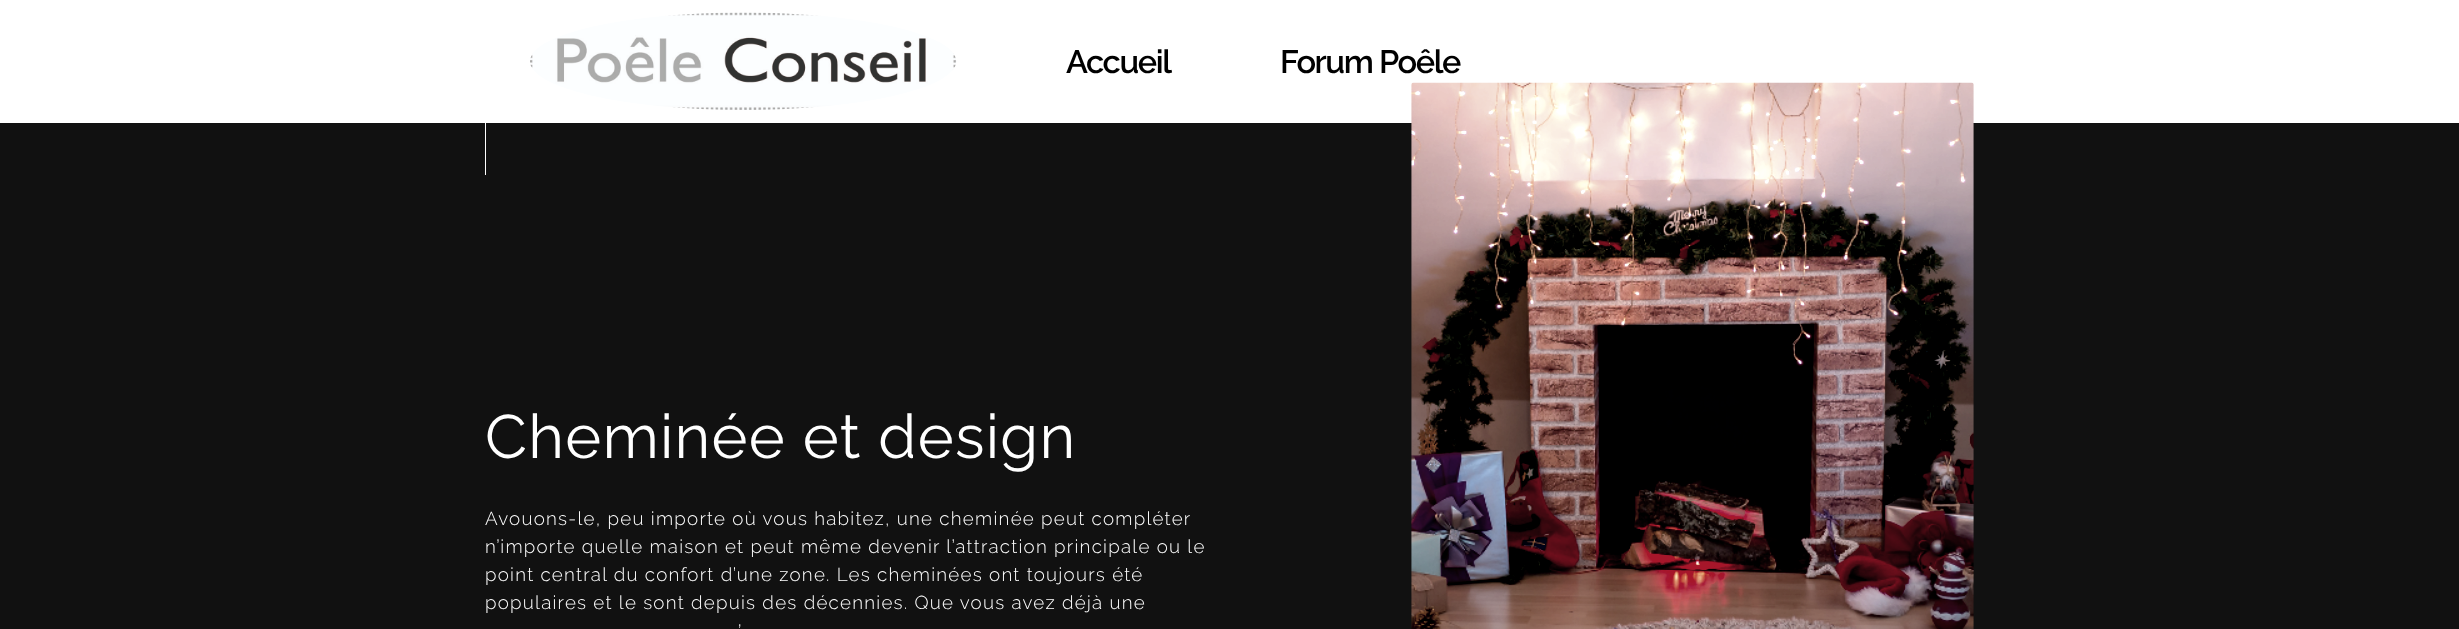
<?xml version="1.0" encoding="UTF-8"?>
<svg xmlns="http://www.w3.org/2000/svg" xmlns:xlink="http://www.w3.org/1999/xlink" width="2459" height="629">
  <rect width="100%" height="100%" fill="#ffffff" />
  <image x="530" y="12" width="427" height="98" xlink:href="image1.png" />
  <rect y="123" width="2459" height="506" fill="#111111" />
  <rect x="485" y="123" width="1" height="52" fill="#ffffff" />
  <image x="1411" y="82" width="563" height="547" xlink:href="image2.png" />
  <text x="1066" y="73" style="font-family: Raleway; font-size: 32.5px; font-weight: 600; letter-spacing: -1.4px; fill: #000000">Accueil</text>
  <text x="1280" y="73" style="font-family: Raleway; font-size: 32.5px; font-weight: 600; letter-spacing: -1.4px; fill: #000000">Forum Poêle</text>
  <text x="485" y="458" style="font-family: Raleway; font-size: 61.25px; letter-spacing: 1.25px; fill: #ffffff">Cheminée et design</text>
  <text x="485" y="525" style="font-family: Raleway; font-size: 18.75px; font-weight: 300; letter-spacing: 1.25px; fill: #ffffff">Avouons-le, peu importe où vous habitez, une cheminée peut compléter</text>
  <text x="485" y="553" style="font-family: Raleway; font-size: 18.75px; font-weight: 300; letter-spacing: 1.25px; fill: #ffffff">n’importe quelle maison et peut même devenir l’attraction principale ou le</text>
  <text x="485" y="581" style="font-family: Raleway; font-size: 18.75px; font-weight: 300; letter-spacing: 1.25px; fill: #ffffff">point central du confort d’une zone. Les cheminées ont toujours été</text>
  <text x="485" y="609" style="font-family: Raleway; font-size: 18.75px; font-weight: 300; letter-spacing: 1.25px; fill: #ffffff">populaires et le sont depuis des décennies. Que vous avez déjà une</text>
  <text x="738" y="638" style="font-family: Raleway; font-size: 18.75px; font-weight: 300; letter-spacing: 1.25px; fill: #ffffff">’</text>
</svg>
